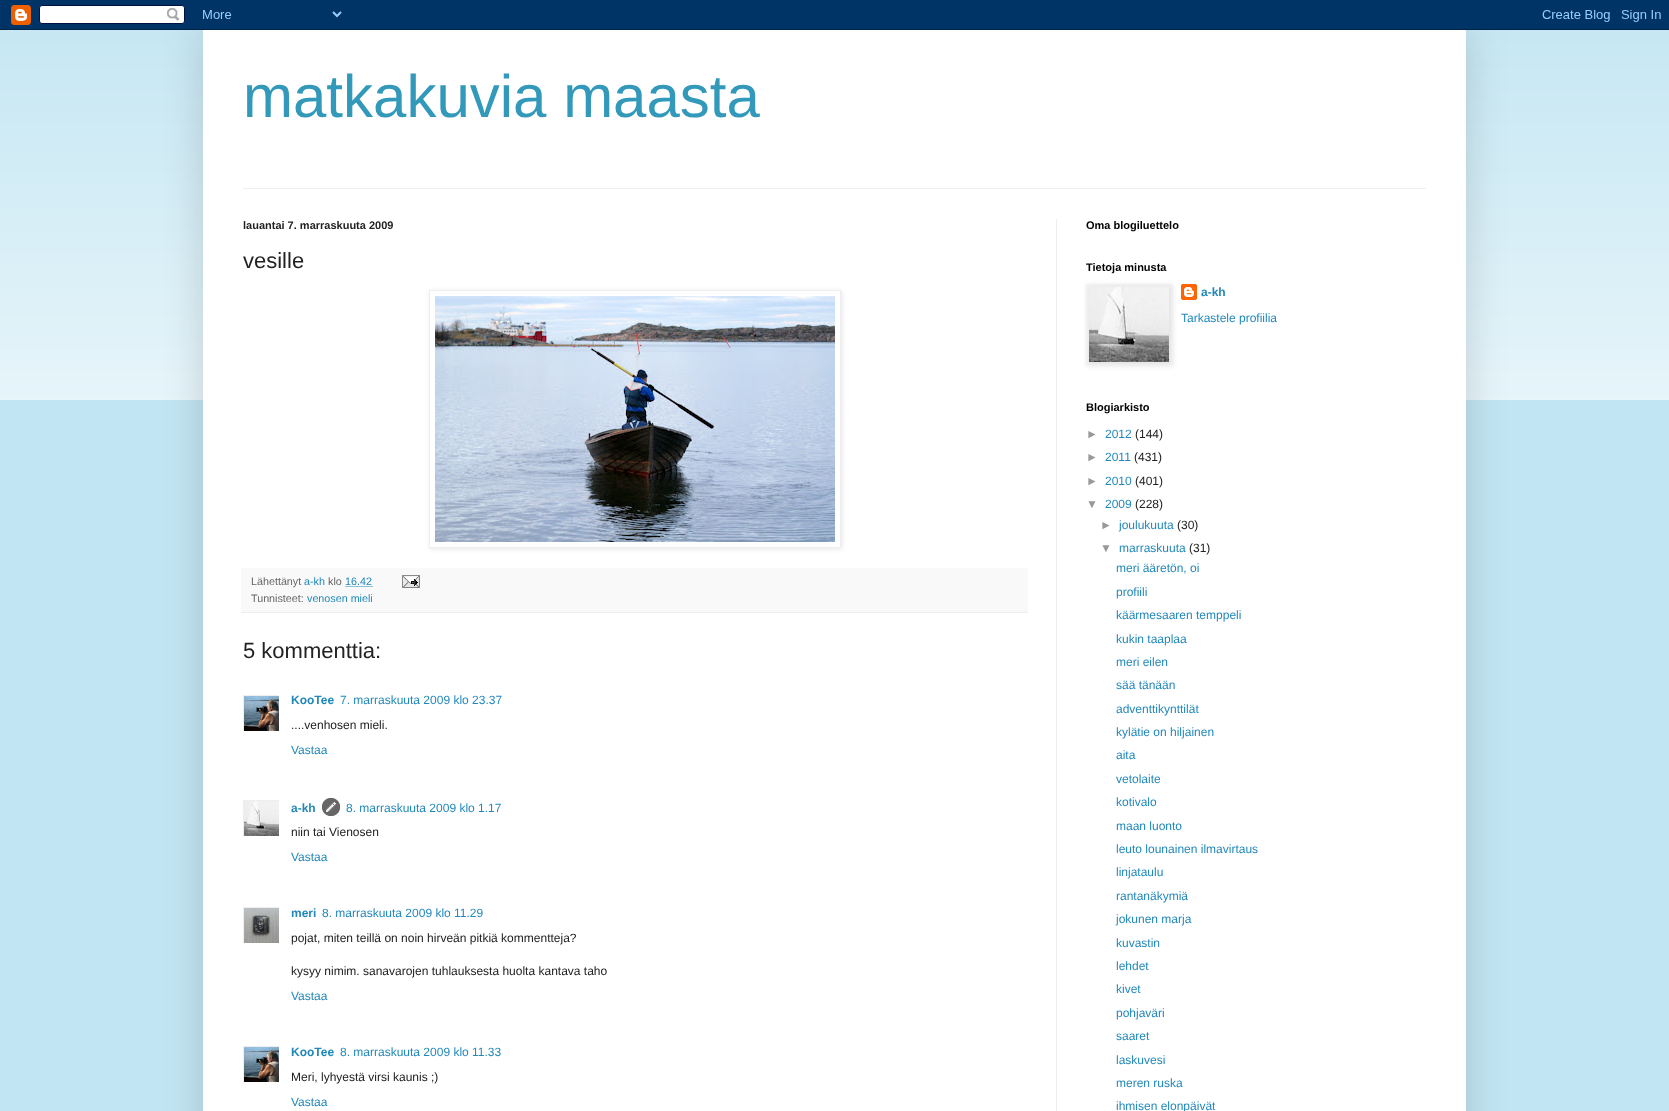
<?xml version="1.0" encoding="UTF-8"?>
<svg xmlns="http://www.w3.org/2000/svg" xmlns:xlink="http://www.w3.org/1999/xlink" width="1669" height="1111">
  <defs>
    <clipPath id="clip1"><path d="M 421 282 h 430 v 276 h -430 z m 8 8 h 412 v 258 h -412 z" clip-rule="evenodd" /></clipPath>
    <clipPath id="clip2"><rect x="243" y="695" width="36" height="36" /></clipPath>
    <clipPath id="clip3"><rect x="243" y="800" width="36" height="36" /></clipPath>
    <clipPath id="clip4"><rect x="243" y="907" width="36" height="36" /></clipPath>
    <clipPath id="clip5"><rect x="243" y="1046" width="36" height="36" /></clipPath>
  </defs>
  <rect width="100%" height="100%" fill="#c1e5f2" />
  <image x="0" y="30" width="1669" height="370" xlink:href="image2.png" />
  <rect x="203" y="30" width="1263" height="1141" fill="#000000" fill-opacity="0.15" filter="blur(20px)" />
  <image x="0" y="0" width="1669" height="30" xlink:href="image1.png" />
  <rect x="203" y="30" width="1263" height="1081" fill="#ffffff" />
  <rect x="243" y="188" width="1183" height="1" fill="#eeeeee" />
  <rect x="1056" y="219" width="1" height="892" fill="#eeeeee" />
  <g clip-path="url(#clip1)">
    <rect x="430" y="291" width="412" height="258" fill="#000000" fill-opacity="0.1" filter="blur(2.5px)" />
  </g>
  <rect x="429.5" y="290.5" width="411" height="257" fill="none" stroke="#eeeeee" />
  <image x="435" y="296" width="400" height="246" xlink:href="image3.png" />
  <rect x="241" y="568" width="787" height="44" fill="#f9f9f9" />
  <rect x="241" y="612" width="787" height="1" fill="#eeeeee" />
  <path d="M 345.5 586.5 h 27" fill="none" stroke="#2288bb" stroke-dasharray="1 1" />
  <image x="402" y="575" width="18" height="13" xlink:href="image4.png" />
  <g clip-path="url(#clip2)">
    <rect x="243.5" y="695.5" width="37" height="37" fill="none" stroke="#eeeeee" />
  </g>
  <image x="244" y="696" width="35" height="35" xlink:href="image5.png" />
  <g clip-path="url(#clip3)">
    <rect x="243.5" y="800.5" width="37" height="37" fill="none" stroke="#eeeeee" />
  </g>
  <image x="244" y="801" width="35" height="35" xlink:href="image6.png" />
  <image x="322" y="798" width="18" height="18" xlink:href="image7.png" />
  <g clip-path="url(#clip4)">
    <rect x="243.5" y="907.5" width="37" height="37" fill="none" stroke="#eeeeee" />
  </g>
  <image x="244" y="908" width="35" height="35" xlink:href="image8.png" />
  <g clip-path="url(#clip5)">
    <rect x="243.5" y="1046.5" width="37" height="37" fill="none" stroke="#eeeeee" />
  </g>
  <image x="244" y="1047" width="35" height="35" xlink:href="image5.png" />
  <image x="1181" y="284" width="16" height="16" xlink:href="image10.png" />
  <rect x="1087" y="285" width="86" height="81" fill="#000000" fill-opacity="0.1" filter="blur(2.5px)" />
  <rect x="1086.5" y="284.5" width="85" height="80" fill="none" stroke="#eeeeee" />
  <image x="1089" y="287" width="80" height="75" xlink:href="image9.png" />
  <text x="243" y="117" style="font-family: Liberation Sans; font-size: 60px; fill: #3399bb">matkakuvia maasta</text>
  <text x="243" y="229" style="font-family: Liberation Sans; font-size: 11px; font-weight: bold; fill: #222222">lauantai 7. marraskuuta 2009</text>
  <text x="243" y="268" style="font-family: Liberation Sans; font-size: 22px; fill: #222222">vesille</text>
  <text x="251" y="585" style="font-family: Liberation Sans; font-size: 10.75px; fill: #666666">Lähettänyt</text>
  <text x="304" y="585" style="font-family: Liberation Sans; font-size: 10.75px; fill: #2288bb">a-kh</text>
  <text x="328" y="585" style="font-family: Liberation Sans; font-size: 10.75px; fill: #666666">klo</text>
  <text x="345" y="585" style="font-family: Liberation Sans; font-size: 10.75px; fill: #2288bb">16.42</text>
  <text x="251" y="602" style="font-family: Liberation Sans; font-size: 10.75px; fill: #666666">Tunnisteet:</text>
  <text x="307" y="602" style="font-family: Liberation Sans; font-size: 10.75px; fill: #2288bb">venosen mieli</text>
  <text x="243" y="658" style="font-family: Liberation Sans; font-size: 22px; fill: #222222">5 kommenttia:</text>
  <text x="291" y="704" style="font-family: Liberation Sans; font-size: 12px; font-weight: bold; fill: #2288bb">KooTee</text>
  <text x="340" y="704" style="font-family: Liberation Sans; font-size: 12px; fill: #2288bb">7. marraskuuta 2009 klo 23.37</text>
  <text x="291" y="729" style="font-family: Liberation Sans; font-size: 12px; fill: #222222">....venhosen mieli.</text>
  <text x="291" y="754" style="font-family: Liberation Sans; font-size: 12px; fill: #2288bb">Vastaa</text>
  <text x="291" y="812" style="font-family: Liberation Sans; font-size: 12px; font-weight: bold; fill: #2288bb">a-kh</text>
  <text x="346" y="812" style="font-family: Liberation Sans; font-size: 12px; fill: #2288bb">8. marraskuuta 2009 klo 1.17</text>
  <text x="291" y="836" style="font-family: Liberation Sans; font-size: 12px; fill: #222222">niin tai Vienosen</text>
  <text x="291" y="861" style="font-family: Liberation Sans; font-size: 12px; fill: #2288bb">Vastaa</text>
  <text x="291" y="917" style="font-family: Liberation Sans; font-size: 12px; font-weight: bold; fill: #2288bb">meri</text>
  <text x="322" y="917" style="font-family: Liberation Sans; font-size: 12px; fill: #2288bb">8. marraskuuta 2009 klo 11.29</text>
  <text x="291" y="942" style="font-family: Liberation Sans; font-size: 12px; fill: #222222">pojat, miten teillä on noin hirveän pitkiä kommentteja?</text>
  <text x="291" y="975" style="font-family: Liberation Sans; font-size: 12px; fill: #222222">kysyy nimim. sanavarojen tuhlauksesta huolta kantava taho</text>
  <text x="291" y="1000" style="font-family: Liberation Sans; font-size: 12px; fill: #2288bb">Vastaa</text>
  <text x="291" y="1056" style="font-family: Liberation Sans; font-size: 12px; font-weight: bold; fill: #2288bb">KooTee</text>
  <text x="340" y="1056" style="font-family: Liberation Sans; font-size: 12px; fill: #2288bb">8. marraskuuta 2009 klo 11.33</text>
  <text x="291" y="1081" style="font-family: Liberation Sans; font-size: 12px; fill: #222222">Meri, lyhyestä virsi kaunis ;)</text>
  <text x="291" y="1106" style="font-family: Liberation Sans; font-size: 12px; fill: #2288bb">Vastaa</text>
  <text x="1086" y="229" style="font-family: Liberation Sans; font-size: 11px; font-weight: bold; fill: #000000">Oma blogiluettelo</text>
  <text x="1086" y="271" style="font-family: Liberation Sans; font-size: 11px; font-weight: bold; fill: #000000">Tietoja minusta</text>
  <text x="1201" y="296" style="font-family: Liberation Sans; font-size: 12px; font-weight: bold; fill: #2288bb">a-kh</text>
  <text x="1181" y="322" style="font-family: Liberation Sans; font-size: 12px; fill: #2288bb">Tarkastele profiilia</text>
  <text x="1086" y="411" style="font-family: Liberation Sans; font-size: 11px; font-weight: bold; fill: #000000">Blogiarkisto</text>
  <text x="1086" y="438" style="font-family: Liberation Sans; font-size: 12px; fill: #999999">►</text>
  <text x="1105" y="438" style="font-family: Liberation Sans; font-size: 12px; fill: #2288bb">2012</text>
  <text x="1135" y="438" style="font-family: Liberation Sans; font-size: 12px; fill: #222222">(144)</text>
  <text x="1086" y="461" style="font-family: Liberation Sans; font-size: 12px; fill: #999999">►</text>
  <text x="1105" y="461" style="font-family: Liberation Sans; font-size: 12px; fill: #2288bb">2011</text>
  <text x="1134" y="461" style="font-family: Liberation Sans; font-size: 12px; fill: #222222">(431)</text>
  <text x="1086" y="485" style="font-family: Liberation Sans; font-size: 12px; fill: #999999">►</text>
  <text x="1105" y="485" style="font-family: Liberation Sans; font-size: 12px; fill: #2288bb">2010</text>
  <text x="1135" y="485" style="font-family: Liberation Sans; font-size: 12px; fill: #222222">(401)</text>
  <text x="1086" y="508" style="font-family: Liberation Sans; font-size: 12px; fill: #999999">▼</text>
  <text x="1105" y="508" style="font-family: Liberation Sans; font-size: 12px; fill: #2288bb">2009</text>
  <text x="1135" y="508" style="font-family: Liberation Sans; font-size: 12px; fill: #222222">(228)</text>
  <text x="1100" y="529" style="font-family: Liberation Sans; font-size: 12px; fill: #999999">►</text>
  <text x="1119" y="529" style="font-family: Liberation Sans; font-size: 12px; fill: #2288bb">joulukuuta</text>
  <text x="1177" y="529" style="font-family: Liberation Sans; font-size: 12px; fill: #222222">(30)</text>
  <text x="1100" y="552" style="font-family: Liberation Sans; font-size: 12px; fill: #999999">▼</text>
  <text x="1119" y="552" style="font-family: Liberation Sans; font-size: 12px; fill: #2288bb">marraskuuta</text>
  <text x="1189" y="552" style="font-family: Liberation Sans; font-size: 12px; fill: #222222">(31)</text>
  <text x="1116" y="572" style="font-family: Liberation Sans; font-size: 12px; fill: #2288bb">meri ääretön, oi</text>
  <text x="1116" y="596" style="font-family: Liberation Sans; font-size: 12px; fill: #2288bb">profiili</text>
  <text x="1116" y="619" style="font-family: Liberation Sans; font-size: 12px; fill: #2288bb">käärmesaaren temppeli</text>
  <text x="1116" y="643" style="font-family: Liberation Sans; font-size: 12px; fill: #2288bb">kukin taaplaa</text>
  <text x="1116" y="666" style="font-family: Liberation Sans; font-size: 12px; fill: #2288bb">meri eilen</text>
  <text x="1116" y="689" style="font-family: Liberation Sans; font-size: 12px; fill: #2288bb">sää tänään</text>
  <text x="1116" y="713" style="font-family: Liberation Sans; font-size: 12px; fill: #2288bb">adventtikynttilät</text>
  <text x="1116" y="736" style="font-family: Liberation Sans; font-size: 12px; fill: #2288bb">kylätie on hiljainen</text>
  <text x="1116" y="759" style="font-family: Liberation Sans; font-size: 12px; fill: #2288bb">aita</text>
  <text x="1116" y="783" style="font-family: Liberation Sans; font-size: 12px; fill: #2288bb">vetolaite</text>
  <text x="1116" y="806" style="font-family: Liberation Sans; font-size: 12px; fill: #2288bb">kotivalo</text>
  <text x="1116" y="830" style="font-family: Liberation Sans; font-size: 12px; fill: #2288bb">maan luonto</text>
  <text x="1116" y="853" style="font-family: Liberation Sans; font-size: 12px; fill: #2288bb">leuto lounainen ilmavirtaus</text>
  <text x="1116" y="876" style="font-family: Liberation Sans; font-size: 12px; fill: #2288bb">linjataulu</text>
  <text x="1116" y="900" style="font-family: Liberation Sans; font-size: 12px; fill: #2288bb">rantanäkymiä</text>
  <text x="1116" y="923" style="font-family: Liberation Sans; font-size: 12px; fill: #2288bb">jokunen marja</text>
  <text x="1116" y="947" style="font-family: Liberation Sans; font-size: 12px; fill: #2288bb">kuvastin</text>
  <text x="1116" y="970" style="font-family: Liberation Sans; font-size: 12px; fill: #2288bb">lehdet</text>
  <text x="1116" y="993" style="font-family: Liberation Sans; font-size: 12px; fill: #2288bb">kivet</text>
  <text x="1116" y="1017" style="font-family: Liberation Sans; font-size: 12px; fill: #2288bb">pohjaväri</text>
  <text x="1116" y="1040" style="font-family: Liberation Sans; font-size: 12px; fill: #2288bb">saaret</text>
  <text x="1116" y="1064" style="font-family: Liberation Sans; font-size: 12px; fill: #2288bb">laskuvesi</text>
  <text x="1116" y="1087" style="font-family: Liberation Sans; font-size: 12px; fill: #2288bb">meren ruska</text>
  <text x="1116" y="1110" style="font-family: Liberation Sans; font-size: 12px; fill: #2288bb">ihmisen elonpäivät</text>
</svg>
